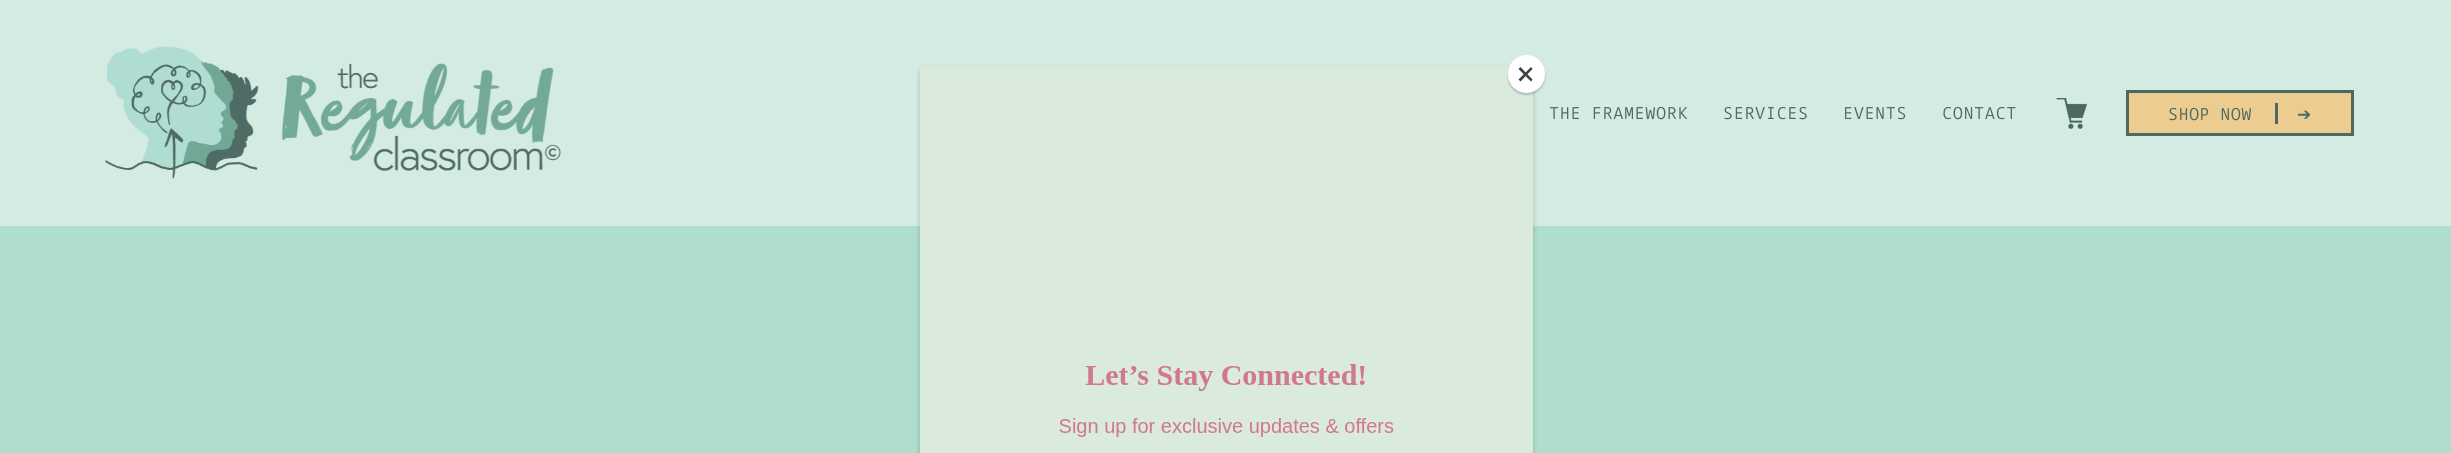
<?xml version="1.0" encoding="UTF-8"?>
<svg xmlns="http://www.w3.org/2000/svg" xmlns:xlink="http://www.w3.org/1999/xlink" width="2451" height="453">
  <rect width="100%" height="100%" fill="#afdece" />
  <rect width="2451" height="226" fill="#d4ebe2" />
  <rect x="920" y="70" width="613" height="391" fill="#000000" fill-opacity="0.2" filter="blur(2.5px)" />
  <image x="920" y="67" width="613" height="386" xlink:href="image1.png" />
  <rect x="1508" y="58" width="37" height="37" rx="18.5" fill="#000000" fill-opacity="0.2" filter="blur(1px)" />
  <rect x="1508" y="55" width="37" height="38" rx="18.5" fill="#ffffff" />
  <path d="M 1531 67 l 1.5 2 l -12 12.5 l -2 -2 z" fill="#414141" />
  <path d="M 1518.5 69 l 2 -2 l 12 12.5 l -1.5 2 z" fill="#414141" />
  <image x="105" y="46" width="456" height="133" xlink:href="image2.png" />
  <image x="2056" y="98" width="31" height="31" xlink:href="image3.png" />
  <rect x="2127.5" y="91.5" width="225" height="43" fill="#edcc90" stroke="#4d6861" stroke-width="3" />
  <rect x="2275" y="103" width="3" height="21" fill="#4d6861" />
  <text x="1549" y="119" style="font-family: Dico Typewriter; font-size: 17px; letter-spacing: 0.5px; fill: #4d6861">THE FRAMEWORK</text>
  <text x="1723" y="119" style="font-family: Dico Typewriter; font-size: 17px; letter-spacing: 0.5px; fill: #4d6861">SERVICES</text>
  <text x="1843" y="119" style="font-family: Dico Typewriter; font-size: 17px; letter-spacing: 0.5px; fill: #4d6861">EVENTS</text>
  <text x="1942" y="119" style="font-family: Dico Typewriter; font-size: 17px; letter-spacing: 0.5px; fill: #4d6861">CONTACT</text>
  <text x="2168" y="120" style="font-family: Dico Typewriter; font-size: 17px; letter-spacing: 0.25px; fill: #4d6861">SHOP NOW</text>
  <text x="2297" y="120" style="font-family: DejaVu Sans; font-size: 17px; letter-spacing: 0.25px; fill: #4d6861">➔</text>
</svg>
